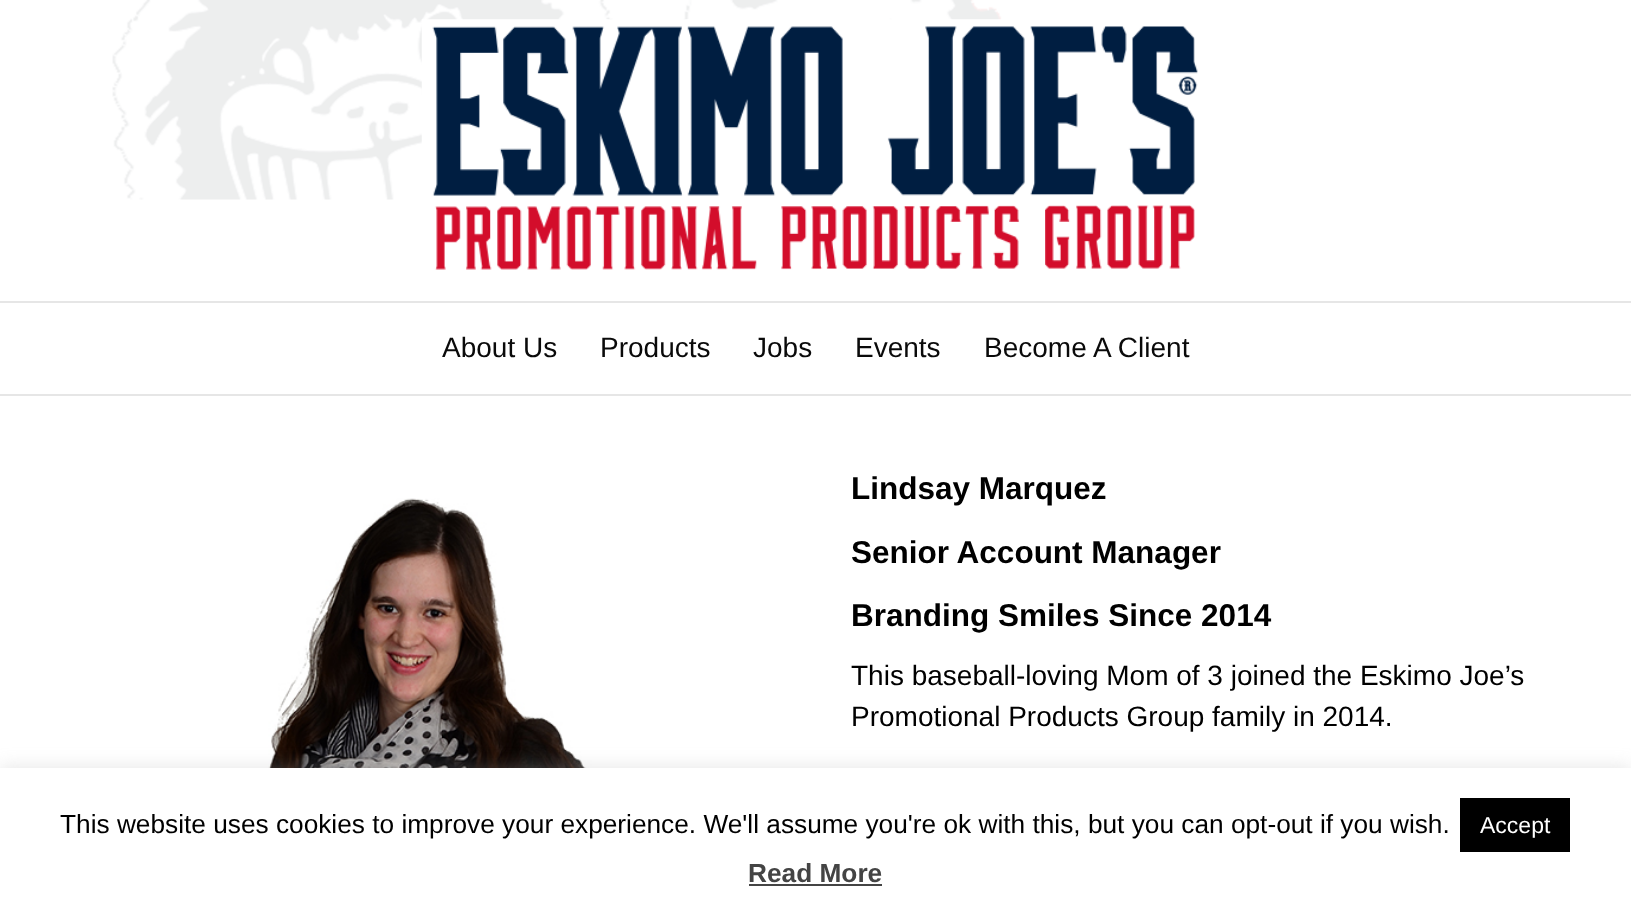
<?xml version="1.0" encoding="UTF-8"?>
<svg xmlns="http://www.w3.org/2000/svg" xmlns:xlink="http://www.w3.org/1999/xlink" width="1631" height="913">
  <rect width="100%" height="100%" fill="#ffffff" />
  <image x="112" y="0" width="941" height="200" xlink:href="image1.png" />
  <image x="421" y="19" width="777" height="251" xlink:href="image2.png" />
  <rect y="301" width="1631" height="2" fill="#e6e6e6" />
  <rect y="394" width="1631" height="2" fill="#e6e6e6" />
  <image x="227" y="498" width="459" height="270" xlink:href="image3.png" />
  <rect y="767" width="1631" height="145" fill="#acabab" fill-opacity="0.3" filter="blur(9px)" />
  <rect y="768" width="1631" height="145" fill="#ffffff" />
  <rect x="1460" y="798" width="110" height="54" fill="#000000" />
  <rect x="749" y="884" width="133" height="2" fill="#444444" />
  <text x="442" y="357" style="font-family: Liberation Sans; font-size: 28px; fill: #0a0a0a">About Us</text>
  <text x="600" y="357" style="font-family: Liberation Sans; font-size: 28px; fill: #0a0a0a">Products</text>
  <text x="753" y="357" style="font-family: Liberation Sans; font-size: 28px; fill: #0a0a0a">Jobs</text>
  <text x="855" y="357" style="font-family: Liberation Sans; font-size: 28px; fill: #0a0a0a">Events</text>
  <text x="984" y="357" style="font-family: Liberation Sans; font-size: 28px; fill: #0a0a0a">Become A Client</text>
  <text x="851" y="499" style="font-family: Liberation Sans; font-size: 31.5px; font-weight: bold; fill: #000000">Lindsay Marquez</text>
  <text x="851" y="563" style="font-family: Liberation Sans; font-size: 31.5px; font-weight: bold; fill: #000000">Senior Account Manager</text>
  <text x="851" y="626" style="font-family: Liberation Sans; font-size: 31.5px; font-weight: bold; fill: #000000">Branding Smiles Since 2014</text>
  <text x="851" y="685" style="font-family: Liberation Sans; font-size: 28px; fill: #000000">This baseball-loving Mom of 3 joined the Eskimo Joe’s</text>
  <text x="851" y="726" style="font-family: Liberation Sans; font-size: 28px; fill: #000000">Promotional Products Group family in 2014.</text>
  <text x="60" y="833" style="font-family: Liberation Sans; font-size: 26.25px; fill: #000000">This website uses cookies to improve your experience. We'll assume you're ok with this, but you can opt-out if you wish.</text>
  <text x="1480" y="833" style="font-family: Liberation Sans; font-size: 23px; fill: #ffffff">Accept</text>
  <text x="748" y="882" style="font-family: Liberation Sans; font-size: 26.25px; font-weight: bold; fill: #444444">Read More</text>
</svg>
